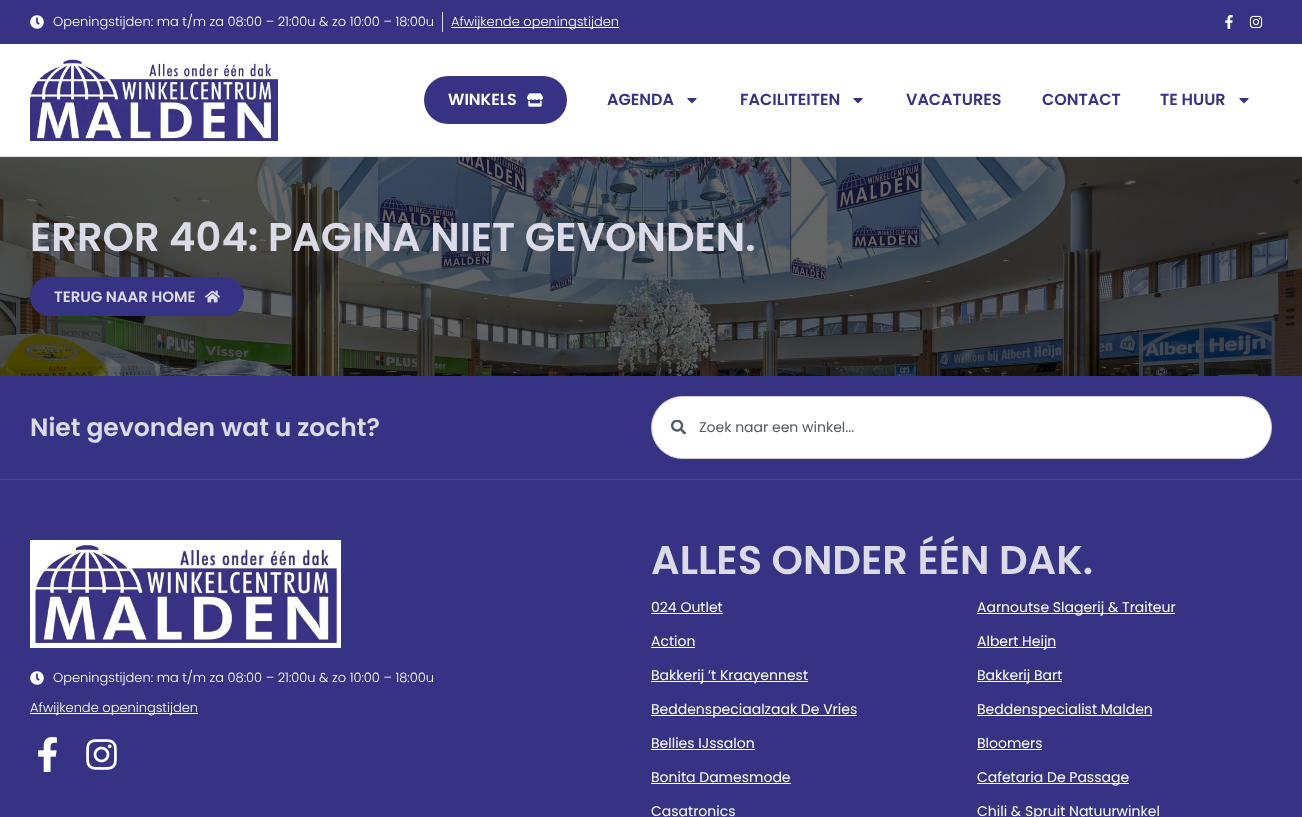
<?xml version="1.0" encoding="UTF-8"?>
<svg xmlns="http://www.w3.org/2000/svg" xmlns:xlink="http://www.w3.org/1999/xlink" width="1302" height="817">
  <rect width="100%" height="100%" fill="#ffffff" />
  <rect width="1302" height="44" fill="#363385" />
  <image x="30" y="15" width="14" height="14" xlink:href="image1.png" />
  <rect x="442" y="12" width="1" height="20" fill="#dddddd" />
  <rect x="451" y="27" width="168" height="1" fill="#ffffff" />
  <image x="1225" y="15" width="8" height="14" xlink:href="image2.png" />
  <image x="1249" y="15" width="14" height="14" xlink:href="image3.png" />
  <rect y="156" width="1302" height="1" fill="#e1e1e1" />
  <image x="30" y="59" width="248" height="82" xlink:href="image4.png" />
  <rect x="424" y="76" width="143" height="48" rx="24" fill="#363385" />
  <image x="527" y="93" width="16" height="14" xlink:href="image5.png" />
  <image x="687" y="98" width="10" height="6" xlink:href="image6.png" />
  <image x="853" y="98" width="10" height="6" xlink:href="image6.png" />
  <image x="1239" y="98" width="10" height="6" xlink:href="image6.png" />
  <image x="0" y="157" width="1302" height="219" xlink:href="image7.png" />
  <rect x="30" y="277" width="214" height="39" rx="19.5" fill="#363385" />
  <image x="205" y="290" width="15" height="13" xlink:href="image8.png" />
  <rect y="376" width="1302" height="103" fill="#363385" />
  <rect x="651.5" y="396.5" width="620" height="62" rx="31" fill="#ffffff" stroke="#cdcdcd" />
  <image x="671" y="420" width="15" height="15" xlink:href="image9.png" />
  <rect y="480" width="1302" height="337" fill="#363385" />
  <rect y="479" width="1302" height="1" fill="#4b4890" />
  <image x="30" y="540" width="311" height="108" xlink:href="image10.png" />
  <image x="30" y="671" width="14" height="14" xlink:href="image1.png" />
  <rect x="30" y="713" width="168" height="1" fill="#ffffff" />
  <image x="38" y="737" width="19" height="35" xlink:href="image11.png" />
  <image x="86" y="739" width="31" height="31" xlink:href="image12.png" />
  <rect x="651" y="613" width="72" height="1" fill="#ffffff" />
  <rect x="977" y="613" width="198" height="1" fill="#ffffff" />
  <rect x="651" y="647" width="44" height="1" fill="#ffffff" />
  <rect x="977" y="647" width="79" height="1" fill="#ffffff" />
  <rect x="651" y="681" width="157" height="1" fill="#ffffff" />
  <rect x="977" y="681" width="85" height="1" fill="#ffffff" />
  <rect x="651" y="715" width="206" height="1" fill="#ffffff" />
  <rect x="977" y="715" width="175" height="1" fill="#ffffff" />
  <rect x="651" y="749" width="104" height="1" fill="#ffffff" />
  <rect x="977" y="749" width="65" height="1" fill="#ffffff" />
  <rect x="651" y="783" width="140" height="1" fill="#ffffff" />
  <rect x="977" y="783" width="152" height="1" fill="#ffffff" />
  <text x="53" y="26" style="font-family: Poppins; font-size: 13px; font-weight: 300; fill: #ffffff">Openingstijden: ma t/m za 08:00 – 21:00u &amp; zo 10:00 – 18:00u</text>
  <text x="451" y="26" style="font-family: Poppins; font-size: 13px; font-weight: 300; fill: #ffffff">Afwijkende openingstijden</text>
  <text x="448" y="105" style="font-family: Poppins; font-size: 16px; font-weight: 600; fill: #ffffff">WINKELS</text>
  <text x="607" y="105" style="font-family: Poppins; font-size: 16px; font-weight: 600; fill: #363385">AGENDA</text>
  <text x="740" y="105" style="font-family: Poppins; font-size: 16px; font-weight: 600; fill: #363385">FACILITEITEN</text>
  <text x="906" y="105" style="font-family: Poppins; font-size: 16px; font-weight: 600; fill: #363385">VACATURES</text>
  <text x="1042" y="105" style="font-family: Poppins; font-size: 16px; font-weight: 600; fill: #363385">CONTACT</text>
  <text x="1160" y="105" style="font-family: Poppins; font-size: 16px; font-weight: 600; fill: #363385">TE HUUR</text>
  <text x="30" y="251" style="font-family: Poppins; font-size: 40px; font-weight: 600; fill: #dbdbe8">ERROR 404: PAGINA NIET GEVONDEN.</text>
  <text x="54" y="302" style="font-family: Poppins; font-size: 15px; font-weight: 600; fill: #dbdbe8">TERUG NAAR HOME</text>
  <text x="30" y="436" style="font-family: Poppins; font-size: 25px; font-weight: 600; fill: #dbdbe8">Niet gevonden wat u zocht?</text>
  <text x="699" y="432" style="font-family: Poppins; font-size: 14px; fill: #515962">Zoek naar een winkel...</text>
  <text x="53" y="682" style="font-family: Poppins; font-size: 13px; font-weight: 300; fill: #ffffff">Openingstijden: ma t/m za 08:00 – 21:00u &amp; zo 10:00 – 18:00u</text>
  <text x="30" y="712" style="font-family: Poppins; font-size: 13px; font-weight: 300; fill: #ffffff">Afwijkende openingstijden</text>
  <text x="651" y="574" style="font-family: Poppins; font-size: 40px; font-weight: 600; fill: #dbdbe8">ALLES ONDER ÉÉN DAK.</text>
  <text x="651" y="612" style="font-family: Poppins; font-size: 14px; fill: #ffffff">024 Outlet</text>
  <text x="977" y="612" style="font-family: Poppins; font-size: 14px; fill: #ffffff">Aarnoutse Slagerij &amp; Traiteur</text>
  <text x="651" y="646" style="font-family: Poppins; font-size: 14px; fill: #ffffff">Action</text>
  <text x="977" y="646" style="font-family: Poppins; font-size: 14px; fill: #ffffff">Albert Heijn</text>
  <text x="651" y="680" style="font-family: Poppins; font-size: 14px; fill: #ffffff">Bakkerij ’t Kraayennest</text>
  <text x="977" y="680" style="font-family: Poppins; font-size: 14px; fill: #ffffff">Bakkerij Bart</text>
  <text x="651" y="714" style="font-family: Poppins; font-size: 14px; fill: #ffffff">Beddenspeciaalzaak De Vries</text>
  <text x="977" y="714" style="font-family: Poppins; font-size: 14px; fill: #ffffff">Beddenspecialist Malden</text>
  <text x="651" y="748" style="font-family: Poppins; font-size: 14px; fill: #ffffff">Bellies IJssalon</text>
  <text x="977" y="748" style="font-family: Poppins; font-size: 14px; fill: #ffffff">Bloomers</text>
  <text x="651" y="782" style="font-family: Poppins; font-size: 14px; fill: #ffffff">Bonita Damesmode</text>
  <text x="977" y="782" style="font-family: Poppins; font-size: 14px; fill: #ffffff">Cafetaria De Passage</text>
  <text x="651" y="816" style="font-family: Poppins; font-size: 14px; fill: #ffffff">Casatronics</text>
  <text x="977" y="816" style="font-family: Poppins; font-size: 14px; fill: #ffffff">Chili &amp; Spruit Natuurwinkel</text>
</svg>
